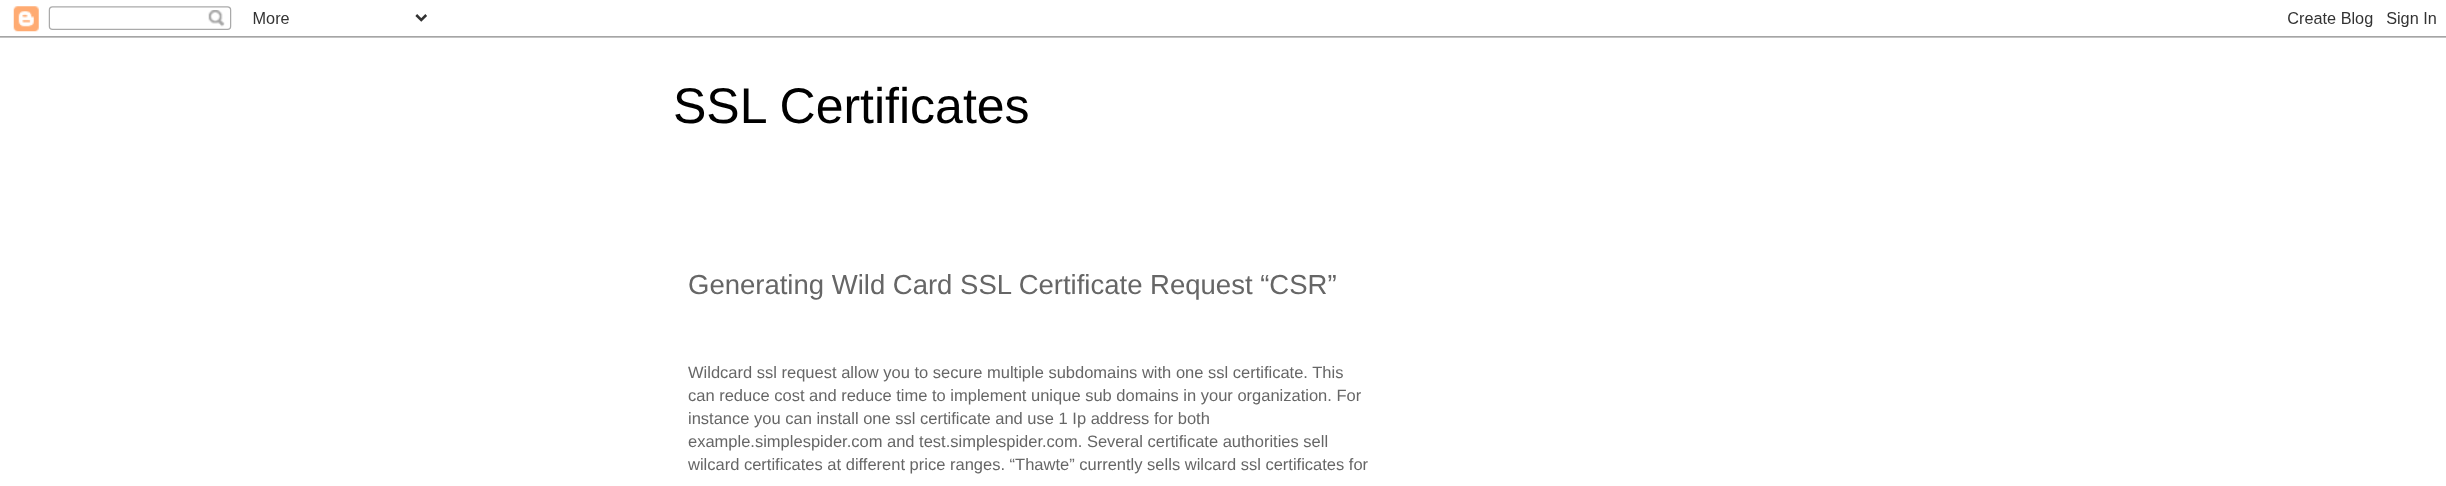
<?xml version="1.0" encoding="UTF-8"?>
<svg xmlns="http://www.w3.org/2000/svg" xmlns:xlink="http://www.w3.org/1999/xlink" width="2446" height="486">
  <rect width="100%" height="100%" fill="#ffffff" />
  <image x="0" y="6" width="2446" height="32" xlink:href="image1.png" />
  <text x="673" y="123" style="font-family: Liberation Sans; font-size: 50px; fill: #000000">SSL Certificates</text>
  <text x="688" y="294" style="font-family: Liberation Sans; font-size: 27.5px; fill: #666666">Generating Wild Card SSL Certificate Request “CSR”</text>
  <text x="688" y="378" style="font-family: Liberation Sans; font-size: 16.5px; fill: #666666">Wildcard ssl request allow you to secure multiple subdomains with one ssl certificate. This</text>
  <text x="688" y="401" style="font-family: Liberation Sans; font-size: 16.5px; fill: #666666">can reduce cost and reduce time to implement unique sub domains in your organization. For</text>
  <text x="688" y="424" style="font-family: Liberation Sans; font-size: 16.5px; fill: #666666">instance you can install one ssl certificate and use 1 Ip address for both</text>
  <text x="688" y="447" style="font-family: Liberation Sans; font-size: 16.5px; fill: #666666">example.simplespider.com and test.simplespider.com. Several certificate authorities sell</text>
  <text x="688" y="470" style="font-family: Liberation Sans; font-size: 16.5px; fill: #666666">wilcard certificates at different price ranges. “Thawte” currently sells wilcard ssl certificates for</text>
</svg>
